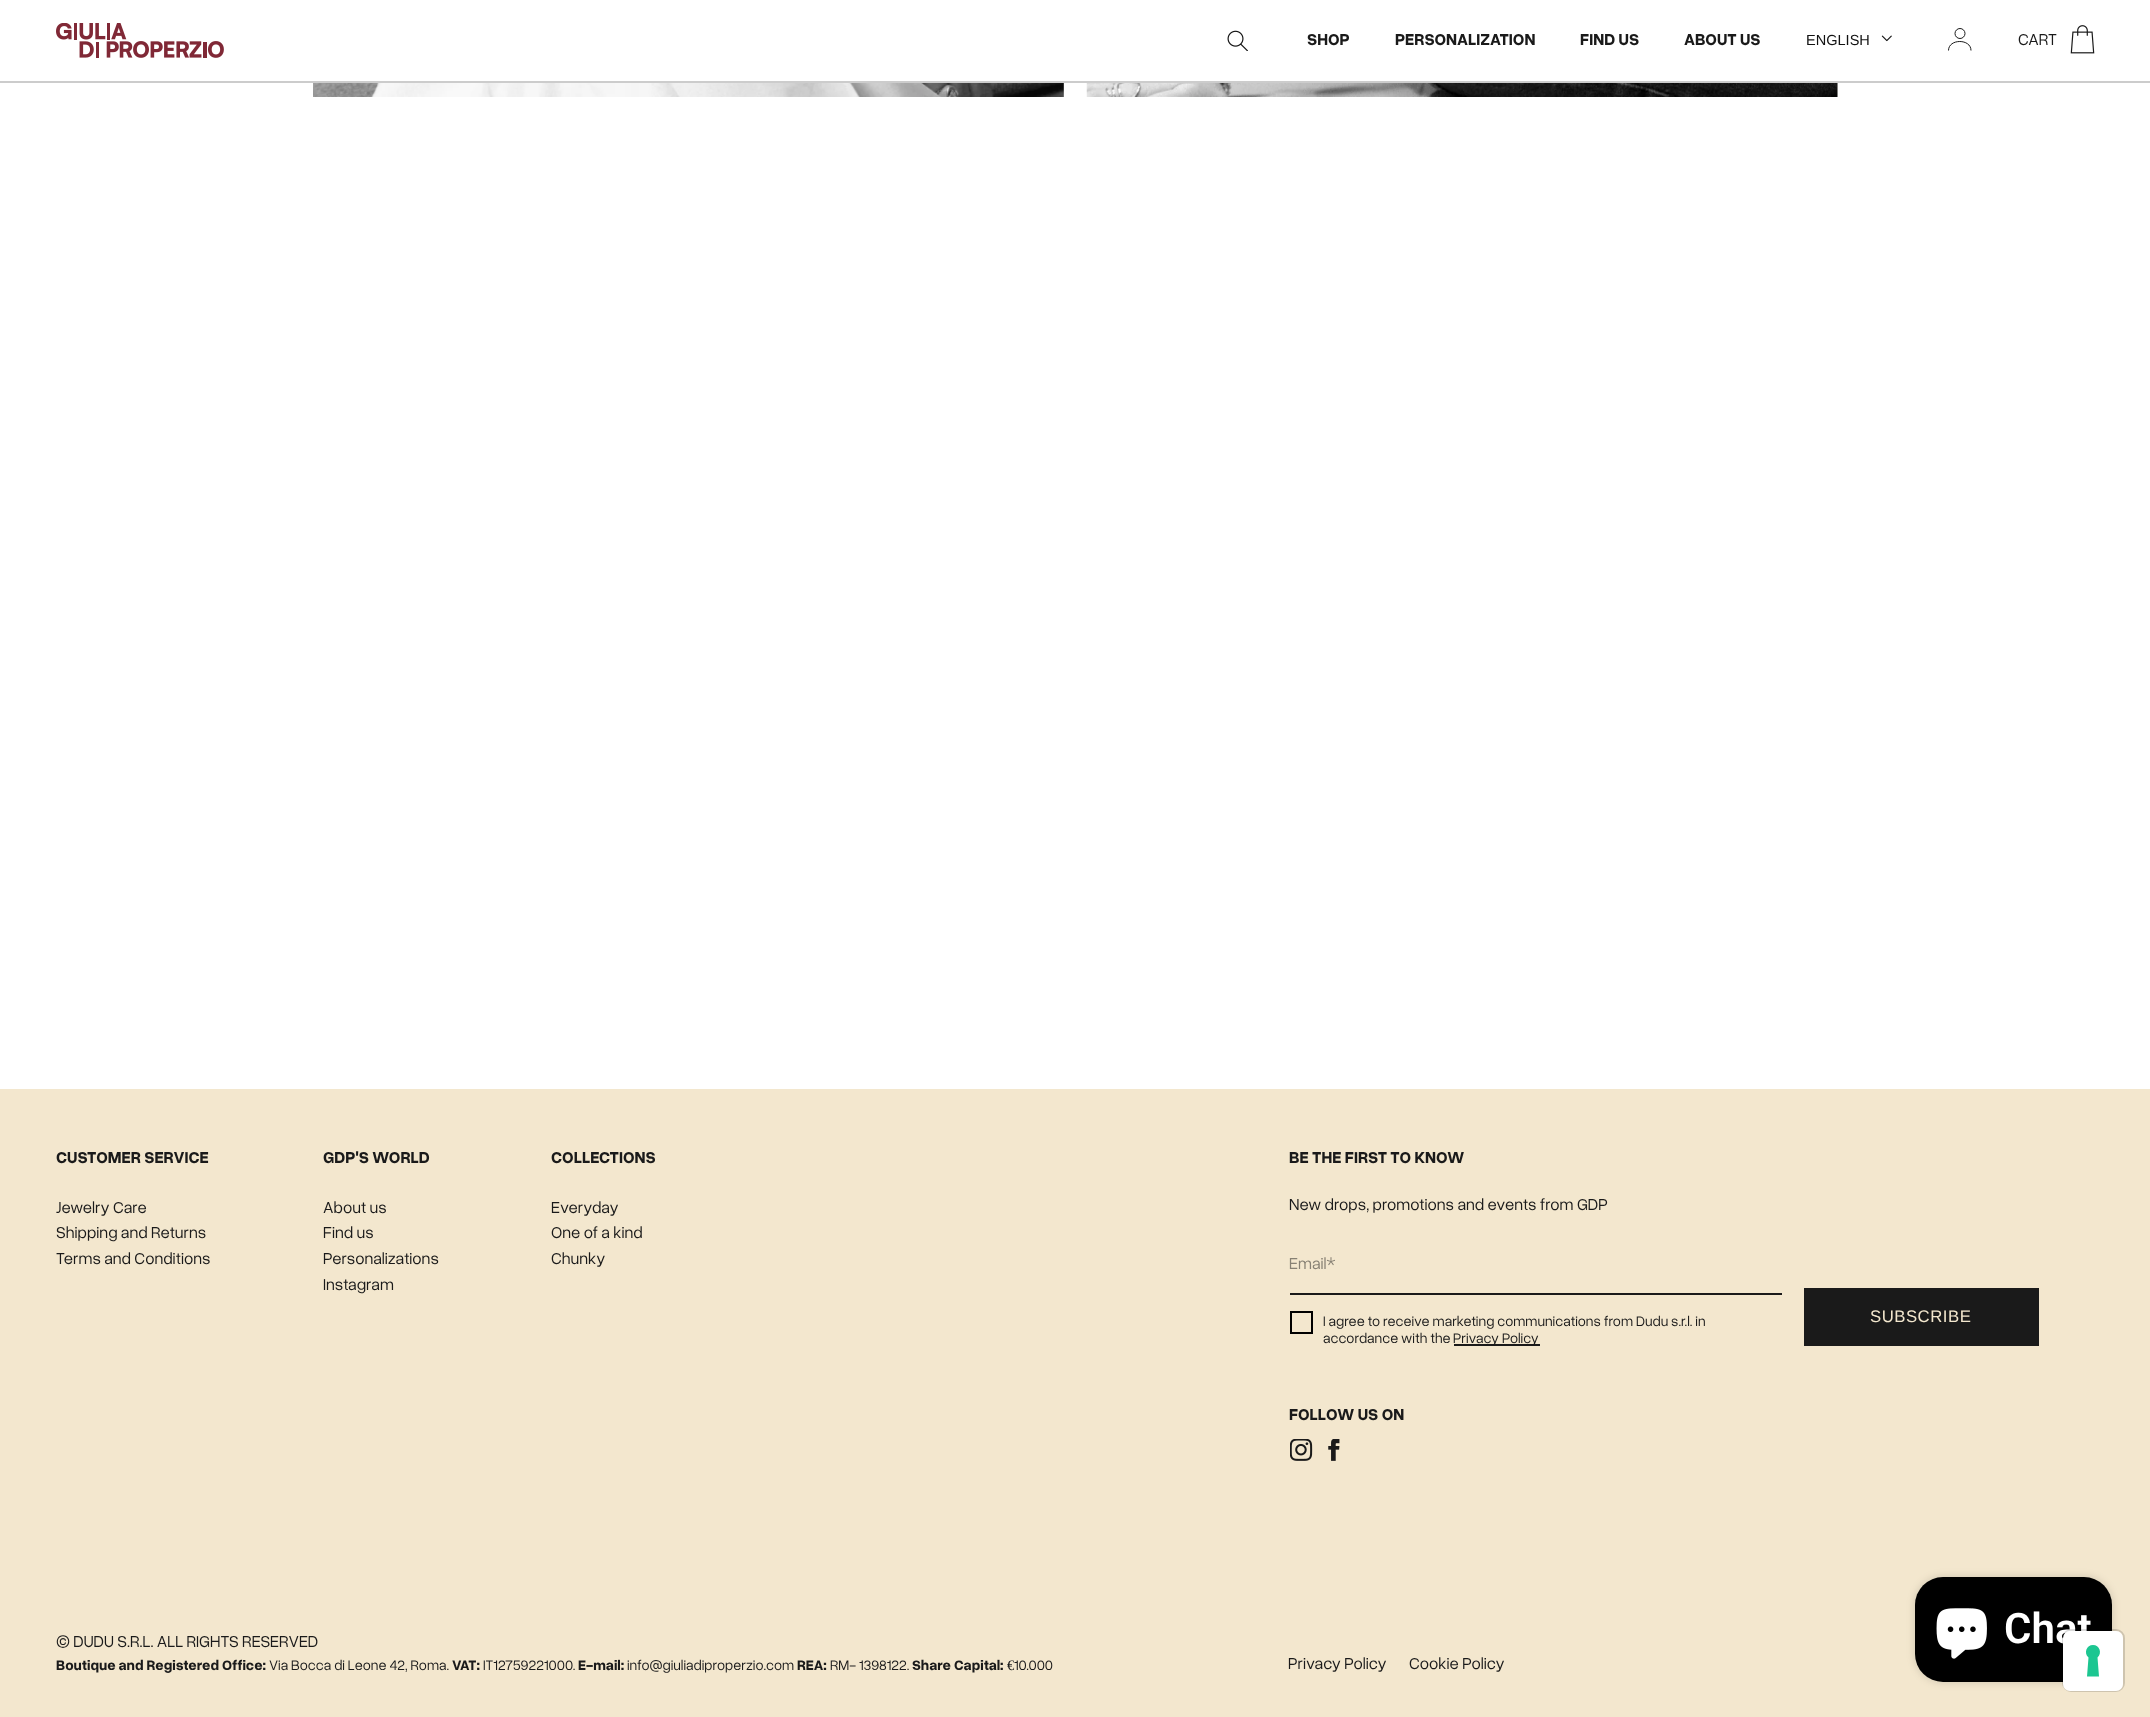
<?xml version="1.0" encoding="UTF-8"?>
<svg xmlns="http://www.w3.org/2000/svg" xmlns:xlink="http://www.w3.org/1999/xlink" width="2150" height="1717">
  <rect width="100%" height="100%" fill="#ffffff" />
  <rect y="81" width="2150" height="2" fill="#cccccc" />
  <image x="56" y="23" width="168" height="35" xlink:href="image1.png" />
  <image x="1227" y="30" width="21" height="21" xlink:href="image2.png" />
  <image x="1881" y="35" width="11" height="7" xlink:href="image3.png" />
  <circle cx="1960" cy="33.5" r="5" fill="none" stroke="#1a1a1a" />
  <path d="M 1971 50.5 c 0 -12 -22.5 -12 -22.5 0" fill="none" stroke="#1a1a1a" />
  <image x="2070" y="25" width="25" height="29" xlink:href="image4.png" />
  <image x="313" y="83" width="751" height="14" xlink:href="image5.png" />
  <rect x="1837" y="83" width="1" height="13" fill="#fbf9f3" />
  <image x="1086" y="83" width="752" height="14" xlink:href="image6.png" />
  <rect y="1089" width="2150" height="628" fill="#f3e7ce" />
  <rect x="1290" y="1293" width="492" height="2" fill="#1a1a1a" />
  <rect x="1291" y="1312" width="21" height="21" fill="none" stroke="#000000" stroke-width="2" />
  <rect x="1454" y="1344" width="86" height="2" fill="#1a1a1a" />
  <rect x="1804" y="1288" width="235" height="58" fill="#1a1a1a" />
  <image x="1290" y="1439" width="23" height="22" xlink:href="image7.png" />
  <image x="1328" y="1439" width="12" height="22" xlink:href="image8.png" />
  <rect x="1915" y="1577" width="197" height="105" rx="28" fill="#000000" fill-opacity="0.15" filter="blur(4.5px)" />
  <rect x="1915" y="1577" width="197" height="105" rx="28" fill="#000000" />
  <image x="1936" y="1608" width="51" height="51" xlink:href="image9.png" />
  <text x="1307" y="45" style="font-family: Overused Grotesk; font-size: 16.75px; font-weight: bold; fill: #1a1a1a">SHOP</text>
  <text x="1395" y="45" style="font-family: Overused Grotesk; font-size: 16.75px; font-weight: bold; fill: #1a1a1a">PERSONALIZATION</text>
  <text x="1580" y="45" style="font-family: Overused Grotesk; font-size: 16.75px; font-weight: bold; fill: #1a1a1a">FIND US</text>
  <text x="1684" y="45" style="font-family: Overused Grotesk; font-size: 16.75px; font-weight: bold; fill: #1a1a1a">ABOUT US</text>
  <text x="1806" y="45" style="font-family: Liberation Sans; font-size: 14.55px; fill: #121212">ENGLISH</text>
  <text x="2018" y="45" style="font-family: Overused Grotesk; font-size: 16.75px; fill: #1a1a1a">CART</text>
  <text x="56" y="1163" style="font-family: Overused Grotesk; font-size: 16.75px; font-weight: bold; fill: #1a1a1a">CUSTOMER SERVICE</text>
  <text x="56" y="1213" style="font-family: Overused Grotesk; font-size: 16.75px; fill: #1a1a1a">Jewelry Care</text>
  <text x="56" y="1238" style="font-family: Overused Grotesk; font-size: 16.75px; fill: #1a1a1a">Shipping and Returns</text>
  <text x="56" y="1264" style="font-family: Overused Grotesk; font-size: 16.75px; fill: #1a1a1a">Terms and Conditions</text>
  <text x="323" y="1163" style="font-family: Overused Grotesk; font-size: 16.75px; font-weight: bold; fill: #1a1a1a">GDP'S WORLD</text>
  <text x="323" y="1213" style="font-family: Overused Grotesk; font-size: 16.75px; fill: #1a1a1a">About us</text>
  <text x="323" y="1238" style="font-family: Overused Grotesk; font-size: 16.75px; fill: #1a1a1a">Find us</text>
  <text x="323" y="1264" style="font-family: Overused Grotesk; font-size: 16.75px; fill: #1a1a1a">Personalizations</text>
  <text x="323" y="1290" style="font-family: Overused Grotesk; font-size: 16.75px; fill: #1a1a1a">Instagram</text>
  <text x="551" y="1163" style="font-family: Overused Grotesk; font-size: 16.75px; font-weight: bold; fill: #1a1a1a">COLLECTIONS</text>
  <text x="551" y="1213" style="font-family: Overused Grotesk; font-size: 16.75px; fill: #1a1a1a">Everyday</text>
  <text x="551" y="1238" style="font-family: Overused Grotesk; font-size: 16.75px; fill: #1a1a1a">One of a kind</text>
  <text x="551" y="1264" style="font-family: Overused Grotesk; font-size: 16.75px; fill: #1a1a1a">Chunky</text>
  <text x="1289" y="1163" style="font-family: Overused Grotesk; font-size: 16.75px; font-weight: bold; fill: #1a1a1a">BE THE FIRST TO KNOW</text>
  <text x="1289" y="1210" style="font-family: Overused Grotesk; font-size: 16.75px; fill: #1a1a1a">New drops, promotions and events from GDP</text>
  <text x="1289" y="1269" style="font-family: Overused Grotesk; font-size: 16.75px; fill: #878174">Email*</text>
  <text x="1323" y="1326" style="font-family: Overused Grotesk; font-size: 14.55px; fill: #1a1a1a">I agree to receive marketing communications from Dudu s.r.l. in</text>
  <text x="1323" y="1343" style="font-family: Overused Grotesk; font-size: 14.55px; fill: #1a1a1a">accordance with the</text>
  <text x="1453" y="1343" style="font-family: Overused Grotesk; font-size: 14.55px; fill: #1a1a1a">Privacy Policy</text>
  <text x="1870" y="1322" style="font-family: Liberation Sans; font-size: 16.75px; letter-spacing: 0.5px; fill: #f3e7ce">SUBSCRIBE</text>
  <text x="1289" y="1420" style="font-family: Overused Grotesk; font-size: 16.75px; font-weight: bold; fill: #1a1a1a">FOLLOW US ON</text>
  <text x="56" y="1647" style="font-family: Overused Grotesk; font-size: 16.75px; fill: #1a1a1a">© DUDU S.R.L. ALL RIGHTS RESERVED</text>
  <text x="56" y="1670" style="font-family: Overused Grotesk; font-size: 14.55px; font-weight: bold; fill: #1a1a1a">Boutique and Registered Office:</text>
  <text x="269" y="1670" style="font-family: Overused Grotesk; font-size: 14.55px; fill: #1a1a1a">Via Bocca di Leone 42, Roma.</text>
  <text x="452" y="1670" style="font-family: Overused Grotesk; font-size: 14.55px; font-weight: bold; fill: #1a1a1a">VAT:</text>
  <text x="483" y="1670" style="font-family: Overused Grotesk; font-size: 14.55px; fill: #1a1a1a">IT12759221000.</text>
  <text x="578" y="1670" style="font-family: Overused Grotesk; font-size: 14.55px; font-weight: bold; fill: #1a1a1a">E-mail:</text>
  <text x="627" y="1670" style="font-family: Overused Grotesk; font-size: 14.55px; fill: #1a1a1a">info@giuliadiproperzio.com</text>
  <text x="797" y="1670" style="font-family: Overused Grotesk; font-size: 14.55px; font-weight: bold; fill: #1a1a1a">REA:</text>
  <text x="830" y="1670" style="font-family: Overused Grotesk; font-size: 14.55px; fill: #1a1a1a">RM- 1398122.</text>
  <text x="912" y="1670" style="font-family: Overused Grotesk; font-size: 14.55px; font-weight: bold; fill: #1a1a1a">Share Capital:</text>
  <text x="1007" y="1670" style="font-family: Liberation Serif; font-size: 14.55px; fill: #1a1a1a">€</text>
  <text x="1014" y="1670" style="font-family: Overused Grotesk; font-size: 14.55px; fill: #1a1a1a">10.000</text>
  <text x="1288" y="1669" style="font-family: Overused Grotesk; font-size: 16.75px; fill: #1a1a1a">Privacy Policy</text>
  <text x="1409" y="1669" style="font-family: Overused Grotesk; font-size: 16.75px; fill: #1a1a1a">Cookie Policy</text>
  <text x="2004" y="1643" style="font-family: Roboto; font-size: 42px; font-weight: 600; fill: #ffffff">Chat</text>
  <rect x="2063" y="1630" width="61" height="61" rx="8" fill="none" stroke="#000000" stroke-opacity="0.15" stroke-width="2" />
  <rect x="2063" y="1631" width="60" height="60" rx="7" fill="#ffffff" />
  <path d="M 2093 1645 c 6.5 0 9.5 8 4.5 12.5 l 1.5 19 h -12 l 1.5 -19 c -5 -4.5 -2 -12.5 4.5 -12.5 z" fill="#1cc691" fill-rule="evenodd" />
</svg>
